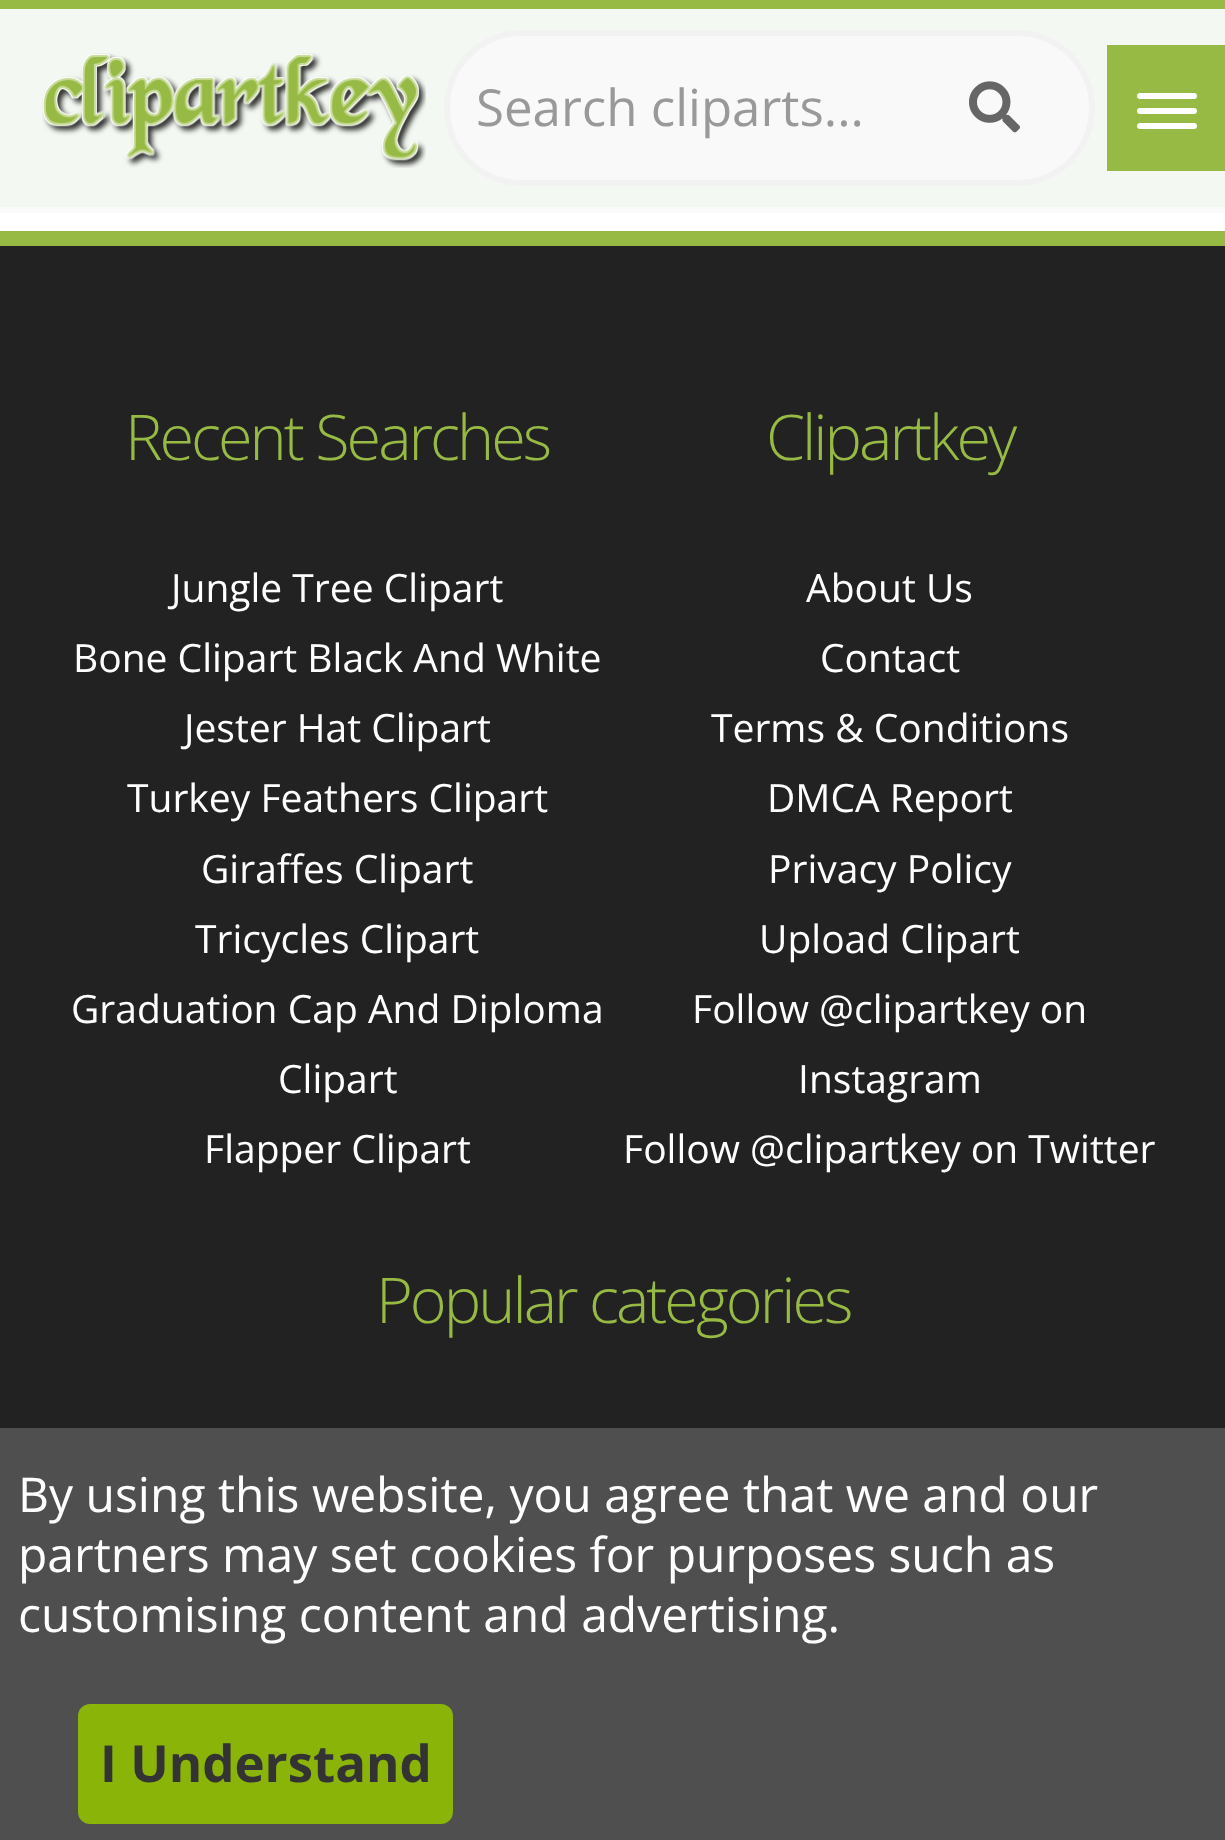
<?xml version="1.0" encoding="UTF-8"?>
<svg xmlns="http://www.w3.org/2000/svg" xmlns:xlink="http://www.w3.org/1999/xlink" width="1225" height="1840">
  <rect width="100%" height="100%" fill="#ffffff" />
  <rect y="9" width="1225" height="198" fill="#f3f8f2" />
  <rect width="1225" height="9" fill="#97ba45" />
  <rect y="207" width="1225" height="6" fill="#fafafa" />
  <image x="42" y="53" width="384" height="115" xlink:href="image1.png" />
  <rect x="447" y="33" width="645" height="150" rx="75" fill="#f9f9f9" stroke="#f2f2f2" stroke-width="6" />
  <image x="969" y="81" width="51" height="52" xlink:href="image2.png" />
  <rect x="1107" y="45" width="118" height="126" fill="#97ba45" />
  <rect x="1137" y="108" width="60" height="6" rx="3" fill="#ffffff" />
  <rect x="1137" y="93" width="60" height="6" rx="3" fill="#ffffff" />
  <rect x="1137" y="123" width="60" height="6" rx="3" fill="#ffffff" />
  <rect y="246" width="1225" height="1182" fill="#222222" />
  <rect y="231" width="1225" height="15" fill="#97ba45" />
  <rect y="1428" width="1225" height="412" fill="#4f4f4f" />
  <rect x="78" y="1704" width="375" height="120" rx="12" fill="#8ab408" />
  <text x="476" y="126" style="font-family: Open Sans; font-size: 51px; fill: #999999">Search cliparts...</text>
  <text x="125" y="460" style="font-family: Open Sans; font-size: 63px; font-weight: 300; letter-spacing: -3px; fill: #97ba45">Recent Searches</text>
  <text x="171" y="602" style="font-family: Open Sans; font-size: 39px; fill: #ffffff">Jungle Tree Clipart</text>
  <text x="73" y="672" style="font-family: Open Sans; font-size: 39px; fill: #ffffff">Bone Clipart Black And White</text>
  <text x="184" y="742" style="font-family: Open Sans; font-size: 39px; fill: #ffffff">Jester Hat Clipart</text>
  <text x="127" y="812" style="font-family: Open Sans; font-size: 39px; fill: #ffffff">Turkey Feathers Clipart</text>
  <text x="201" y="883" style="font-family: Open Sans; font-size: 39px; fill: #ffffff">Giraffes Clipart</text>
  <text x="195" y="953" style="font-family: Open Sans; font-size: 39px; fill: #ffffff">Tricycles Clipart</text>
  <text x="71" y="1023" style="font-family: Open Sans; font-size: 39px; fill: #ffffff">Graduation Cap And Diploma</text>
  <text x="278" y="1093" style="font-family: Open Sans; font-size: 39px; fill: #ffffff">Clipart</text>
  <text x="204" y="1163" style="font-family: Open Sans; font-size: 39px; fill: #ffffff">Flapper Clipart</text>
  <text x="766" y="460" style="font-family: Open Sans; font-size: 63px; font-weight: 300; letter-spacing: -3px; fill: #97ba45">Clipartkey</text>
  <text x="806" y="602" style="font-family: Open Sans; font-size: 39px; fill: #ffffff">About Us</text>
  <text x="820" y="672" style="font-family: Open Sans; font-size: 39px; fill: #ffffff">Contact</text>
  <text x="711" y="742" style="font-family: Open Sans; font-size: 39px; fill: #ffffff">Terms &amp; Conditions</text>
  <text x="767" y="812" style="font-family: Open Sans; font-size: 39px; fill: #ffffff">DMCA Report</text>
  <text x="768" y="883" style="font-family: Open Sans; font-size: 39px; fill: #ffffff">Privacy Policy</text>
  <text x="759" y="953" style="font-family: Open Sans; font-size: 39px; fill: #ffffff">Upload Clipart</text>
  <text x="692" y="1023" style="font-family: Open Sans; font-size: 39px; fill: #ffffff">Follow @clipartkey on</text>
  <text x="798" y="1093" style="font-family: Open Sans; font-size: 39px; fill: #ffffff">Instagram</text>
  <text x="623" y="1163" style="font-family: Open Sans; font-size: 39px; fill: #ffffff">Follow @clipartkey on Twitter</text>
  <text x="376" y="1323" style="font-family: Open Sans; font-size: 63px; font-weight: 300; letter-spacing: -3px; fill: #97ba45">Popular categories</text>
  <text x="18" y="1512" style="font-family: Open Sans; font-size: 48px; fill: #ffffff">By using this website, you agree that we and our</text>
  <text x="18" y="1572" style="font-family: Open Sans; font-size: 48px; fill: #ffffff">partners may set cookies for purposes such as</text>
  <text x="18" y="1632" style="font-family: Open Sans; font-size: 48px; fill: #ffffff">customising content and advertising.</text>
  <text x="100" y="1782" style="font-family: Open Sans; font-size: 51px; font-weight: bold; fill: #333333">I Understand</text>
</svg>
